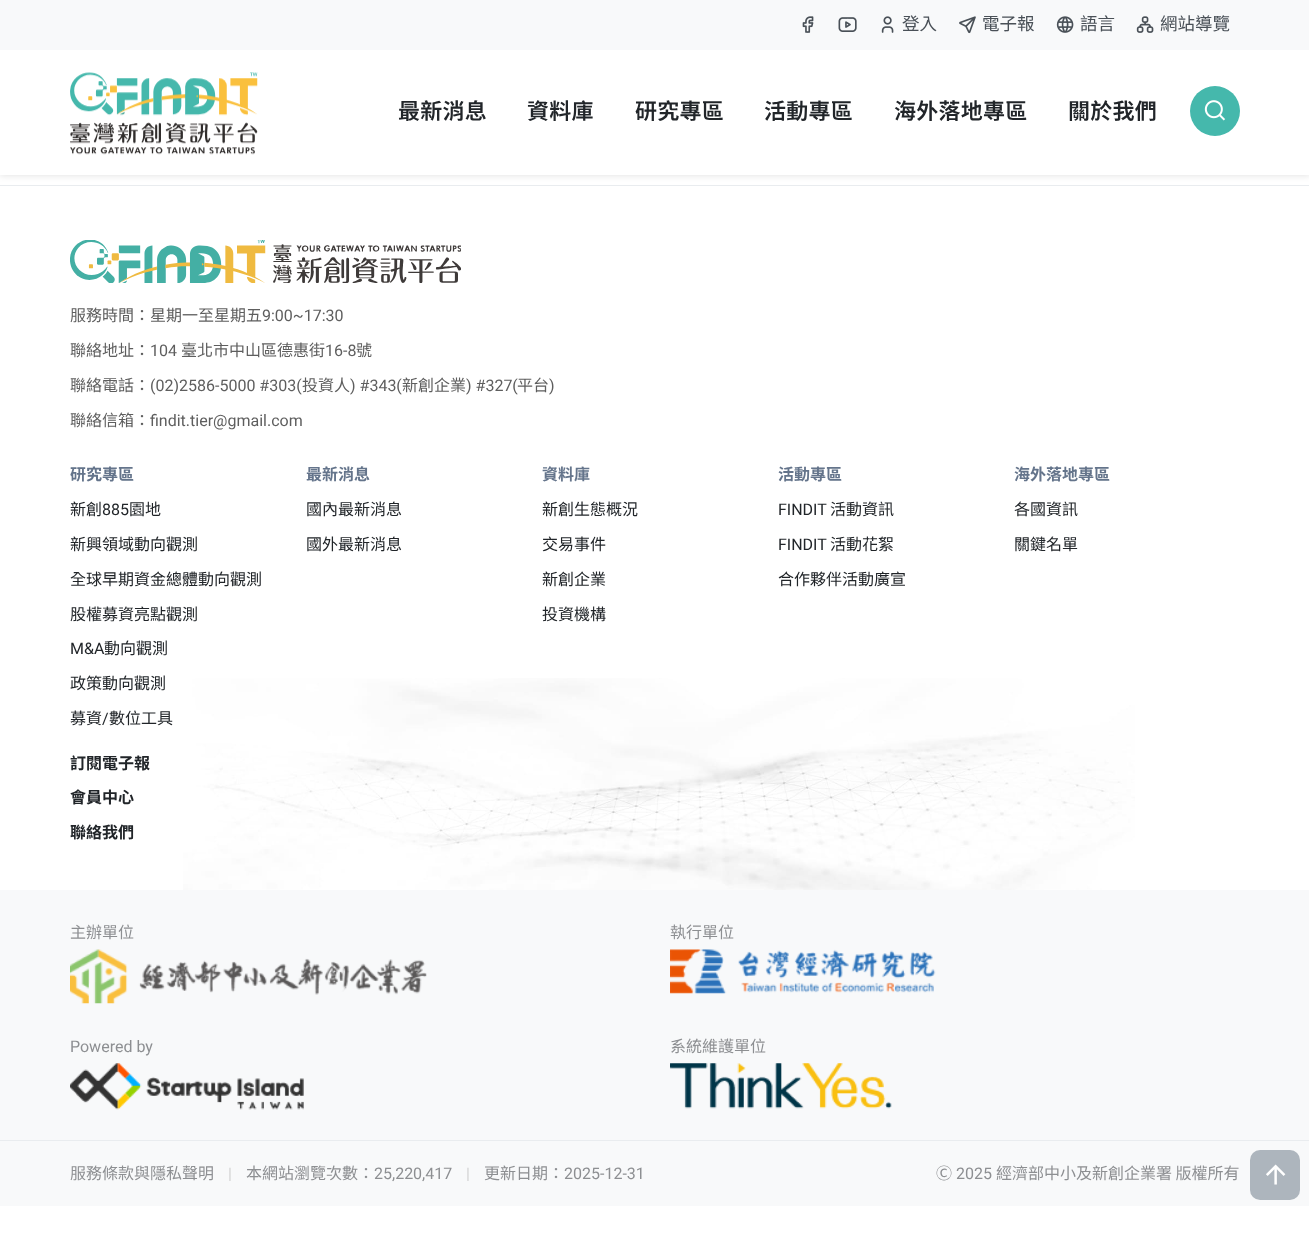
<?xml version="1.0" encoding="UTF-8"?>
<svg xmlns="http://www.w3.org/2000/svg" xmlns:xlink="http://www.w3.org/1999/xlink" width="1309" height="1237">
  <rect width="100%" height="100%" fill="#ffffff" />
  <rect y="185" width="1309" height="1" fill="#e9ecef" />
  <rect y="1" width="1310" height="175" fill="#000000" fill-opacity="0.1" filter="blur(3px)" />
  <rect y="50" width="1309" height="125" fill="#ffffff" />
  <rect width="1309" height="50" fill="#f8f9fa" />
  <image x="802" y="16" width="12" height="17" xlink:href="image1.png" />
  <image x="838" y="17" width="19" height="15" xlink:href="image2.png" />
  <image x="881" y="16" width="13" height="17" xlink:href="image3.png" />
  <image x="959" y="16" width="17" height="18" xlink:href="image4.png" />
  <image x="1056" y="16" width="18" height="17" xlink:href="image5.png" />
  <image x="1136" y="16" width="18" height="17" xlink:href="image6.png" />
  <image x="70" y="72" width="188" height="83" xlink:href="image7.png" />
  <circle cx="1215" cy="111" r="25" fill="#45b8ac" />
  <image x="1204" y="100" width="22" height="21" xlink:href="image8.png" />
  <image x="183" y="678" width="952" height="212" xlink:href="image9.png" />
  <image x="70" y="240" width="391" height="43" xlink:href="image10.png" />
  <rect y="890" width="1309" height="316" fill="#f8f9fa" />
  <image x="70" y="949" width="357" height="55" xlink:href="image11.png" />
  <image x="670" y="949" width="266" height="45" xlink:href="image12.png" />
  <image x="70" y="1063" width="234" height="47" xlink:href="image13.png" />
  <image x="670" y="1063" width="222" height="46" xlink:href="image14.png" />
  <rect y="1140" width="1309" height="1" fill="#e9ecef" />
  <rect x="1250" y="1150" width="50" height="50" rx="10" fill="#adb5bd" />
  <image x="1266" y="1164" width="20" height="21" xlink:href="image15.png" />
  <text x="902" y="30" style="font-family: Noto Sans TC; font-size: 17.5px; fill: #495057">登入</text>
  <text x="982" y="30" style="font-family: Noto Sans TC; font-size: 17.5px; fill: #495057">電子報</text>
  <text x="1080" y="30" style="font-family: Noto Sans TC; font-size: 17.5px; fill: #495057">語言</text>
  <text x="1160" y="30" style="font-family: Noto Sans TC; font-size: 17.5px; fill: #495057">網站導覽</text>
  <text x="398" y="119" style="font-family: Noto Sans TC; font-size: 22px; font-weight: 600; letter-spacing: 0.25px; fill: #212529">最新消息</text>
  <text x="527" y="119" style="font-family: Noto Sans TC; font-size: 22px; font-weight: 600; letter-spacing: 0.25px; fill: #212529">資料庫</text>
  <text x="635" y="119" style="font-family: Noto Sans TC; font-size: 22px; font-weight: 600; letter-spacing: 0.25px; fill: #212529">研究專區</text>
  <text x="764" y="119" style="font-family: Noto Sans TC; font-size: 22px; font-weight: 600; letter-spacing: 0.25px; fill: #212529">活動專區</text>
  <text x="894" y="119" style="font-family: Noto Sans TC; font-size: 22px; font-weight: 600; letter-spacing: 0.25px; fill: #212529">海外落地專區</text>
  <text x="1068" y="119" style="font-family: Noto Sans TC; font-size: 22px; font-weight: 600; letter-spacing: 0.25px; fill: #212529">關於我們</text>
  <text x="70" y="321" style="font-family: Noto Sans TC; font-size: 16px; fill: #5e5e5e">服務時間：星期一至星期五</text>
  <text x="262" y="321" style="font-family: Roboto; font-size: 16px; fill: #5e5e5e">9:00~17:30</text>
  <text x="70" y="356" style="font-family: Noto Sans TC; font-size: 16px; fill: #5e5e5e">聯絡地址：</text>
  <text x="150" y="356" style="font-family: Roboto; font-size: 16px; fill: #5e5e5e">104</text>
  <text x="181" y="356" style="font-family: Noto Sans TC; font-size: 16px; fill: #5e5e5e">臺北市中山區德惠街</text>
  <text x="325" y="356" style="font-family: Roboto; font-size: 16px; fill: #5e5e5e">16-8</text>
  <text x="356" y="356" style="font-family: Noto Sans TC; font-size: 16px; fill: #5e5e5e">號</text>
  <text x="70" y="391" style="font-family: Noto Sans TC; font-size: 16px; fill: #5e5e5e">聯絡電話：</text>
  <text x="150" y="391" style="font-family: Roboto; font-size: 16px; fill: #5e5e5e">(02)2586-5000 #303(</text>
  <text x="302" y="391" style="font-family: Noto Sans TC; font-size: 16px; fill: #5e5e5e">投資人</text>
  <text x="350" y="391" style="font-family: Roboto; font-size: 16px; fill: #5e5e5e">) #343(</text>
  <text x="402" y="391" style="font-family: Noto Sans TC; font-size: 16px; fill: #5e5e5e">新創企業</text>
  <text x="466" y="391" style="font-family: Roboto; font-size: 16px; fill: #5e5e5e">) #327(</text>
  <text x="517" y="391" style="font-family: Noto Sans TC; font-size: 16px; fill: #5e5e5e">平台</text>
  <text x="549" y="391" style="font-family: Roboto; font-size: 16px; fill: #5e5e5e">)</text>
  <text x="70" y="426" style="font-family: Noto Sans TC; font-size: 16px; fill: #5e5e5e">聯絡信箱：</text>
  <text x="150" y="426" style="font-family: Roboto; font-size: 16px; fill: #5e5e5e">findit.tier@gmail.com</text>
  <text x="70" y="480" style="font-family: Noto Sans TC; font-size: 16px; font-weight: bold; fill: #64748b">研究專區</text>
  <text x="70" y="515" style="font-family: Noto Sans TC; font-size: 16px; fill: #212529">新創</text>
  <text x="102" y="515" style="font-family: Roboto; font-size: 16px; fill: #212529">885</text>
  <text x="129" y="515" style="font-family: Noto Sans TC; font-size: 16px; fill: #212529">園地</text>
  <text x="70" y="550" style="font-family: Noto Sans TC; font-size: 16px; fill: #212529">新興領域動向觀測</text>
  <text x="70" y="585" style="font-family: Noto Sans TC; font-size: 16px; fill: #212529">全球早期資金總體動向觀測</text>
  <text x="70" y="620" style="font-family: Noto Sans TC; font-size: 16px; fill: #212529">股權募資亮點觀測</text>
  <text x="70" y="654" style="font-family: Roboto; font-size: 16px; fill: #212529">M&amp;A</text>
  <text x="104" y="654" style="font-family: Noto Sans TC; font-size: 16px; fill: #212529">動向觀測</text>
  <text x="70" y="689" style="font-family: Noto Sans TC; font-size: 16px; fill: #212529">政策動向觀測</text>
  <text x="70" y="724" style="font-family: Noto Sans TC; font-size: 16px; fill: #212529">募資</text>
  <text x="102" y="724" style="font-family: Roboto; font-size: 16px; fill: #212529">/</text>
  <text x="109" y="724" style="font-family: Noto Sans TC; font-size: 16px; fill: #212529">數位工具</text>
  <text x="306" y="480" style="font-family: Noto Sans TC; font-size: 16px; font-weight: bold; fill: #64748b">最新消息</text>
  <text x="306" y="515" style="font-family: Noto Sans TC; font-size: 16px; fill: #212529">國內最新消息</text>
  <text x="306" y="550" style="font-family: Noto Sans TC; font-size: 16px; fill: #212529">國外最新消息</text>
  <text x="542" y="480" style="font-family: Noto Sans TC; font-size: 16px; font-weight: bold; fill: #64748b">資料庫</text>
  <text x="542" y="515" style="font-family: Noto Sans TC; font-size: 16px; fill: #212529">新創生態概況</text>
  <text x="542" y="550" style="font-family: Noto Sans TC; font-size: 16px; fill: #212529">交易事件</text>
  <text x="542" y="585" style="font-family: Noto Sans TC; font-size: 16px; fill: #212529">新創企業</text>
  <text x="542" y="620" style="font-family: Noto Sans TC; font-size: 16px; fill: #212529">投資機構</text>
  <text x="778" y="480" style="font-family: Noto Sans TC; font-size: 16px; font-weight: bold; fill: #64748b">活動專區</text>
  <text x="778" y="515" style="font-family: Roboto; font-size: 16px; fill: #212529">FINDIT</text>
  <text x="830" y="515" style="font-family: Noto Sans TC; font-size: 16px; fill: #212529">活動資訊</text>
  <text x="778" y="550" style="font-family: Roboto; font-size: 16px; fill: #212529">FINDIT</text>
  <text x="830" y="550" style="font-family: Noto Sans TC; font-size: 16px; fill: #212529">活動花絮</text>
  <text x="778" y="585" style="font-family: Noto Sans TC; font-size: 16px; fill: #212529">合作夥伴活動廣宣</text>
  <text x="1014" y="480" style="font-family: Noto Sans TC; font-size: 16px; font-weight: bold; fill: #64748b">海外落地專區</text>
  <text x="1014" y="515" style="font-family: Noto Sans TC; font-size: 16px; fill: #212529">各國資訊</text>
  <text x="1014" y="550" style="font-family: Noto Sans TC; font-size: 16px; fill: #212529">關鍵名單</text>
  <text x="70" y="769" style="font-family: Noto Sans TC; font-size: 16px; font-weight: bold; fill: #212529">訂閱電子報</text>
  <text x="70" y="803" style="font-family: Noto Sans TC; font-size: 16px; font-weight: bold; fill: #212529">會員中心</text>
  <text x="70" y="838" style="font-family: Noto Sans TC; font-size: 16px; font-weight: bold; fill: #212529">聯絡我們</text>
  <text x="70" y="938" style="font-family: Noto Sans TC; font-size: 16px; fill: #8d8f92">主辦單位</text>
  <text x="670" y="938" style="font-family: Noto Sans TC; font-size: 16px; fill: #8d8f92">執行單位</text>
  <text x="70" y="1052" style="font-family: Roboto; font-size: 16px; fill: #8d8f92">Powered by</text>
  <text x="670" y="1052" style="font-family: Noto Sans TC; font-size: 16px; fill: #8d8f92">系統維護單位</text>
  <text x="70" y="1179" style="font-family: Noto Sans TC; font-size: 16px; fill: #8d8f92">服務條款與隱私聲明</text>
  <text x="228" y="1179" style="font-family: Roboto; font-size: 16px; fill: #d2d2d3">|</text>
  <text x="246" y="1179" style="font-family: Noto Sans TC; font-size: 16px; fill: #8d8f92">本網站瀏覽次數：</text>
  <text x="374" y="1179" style="font-family: Roboto; font-size: 16px; fill: #8d8f92">25,220,417</text>
  <text x="466" y="1179" style="font-family: Roboto; font-size: 16px; fill: #d2d2d3">|</text>
  <text x="484" y="1179" style="font-family: Noto Sans TC; font-size: 16px; fill: #8d8f92">更新日期：</text>
  <text x="564" y="1179" style="font-family: Roboto; font-size: 16px; fill: #8d8f92">2025-12-31</text>
  <text x="936" y="1179" style="font-family: Noto Sans TC; font-size: 16px; fill: #8d8f92">Ⓒ</text>
  <text x="956" y="1179" style="font-family: Roboto; font-size: 16px; fill: #8d8f92">2025</text>
  <text x="996" y="1179" style="font-family: Noto Sans TC; font-size: 16px; fill: #8d8f92">經濟部中小及新創企業署 版權所有</text>
</svg>
